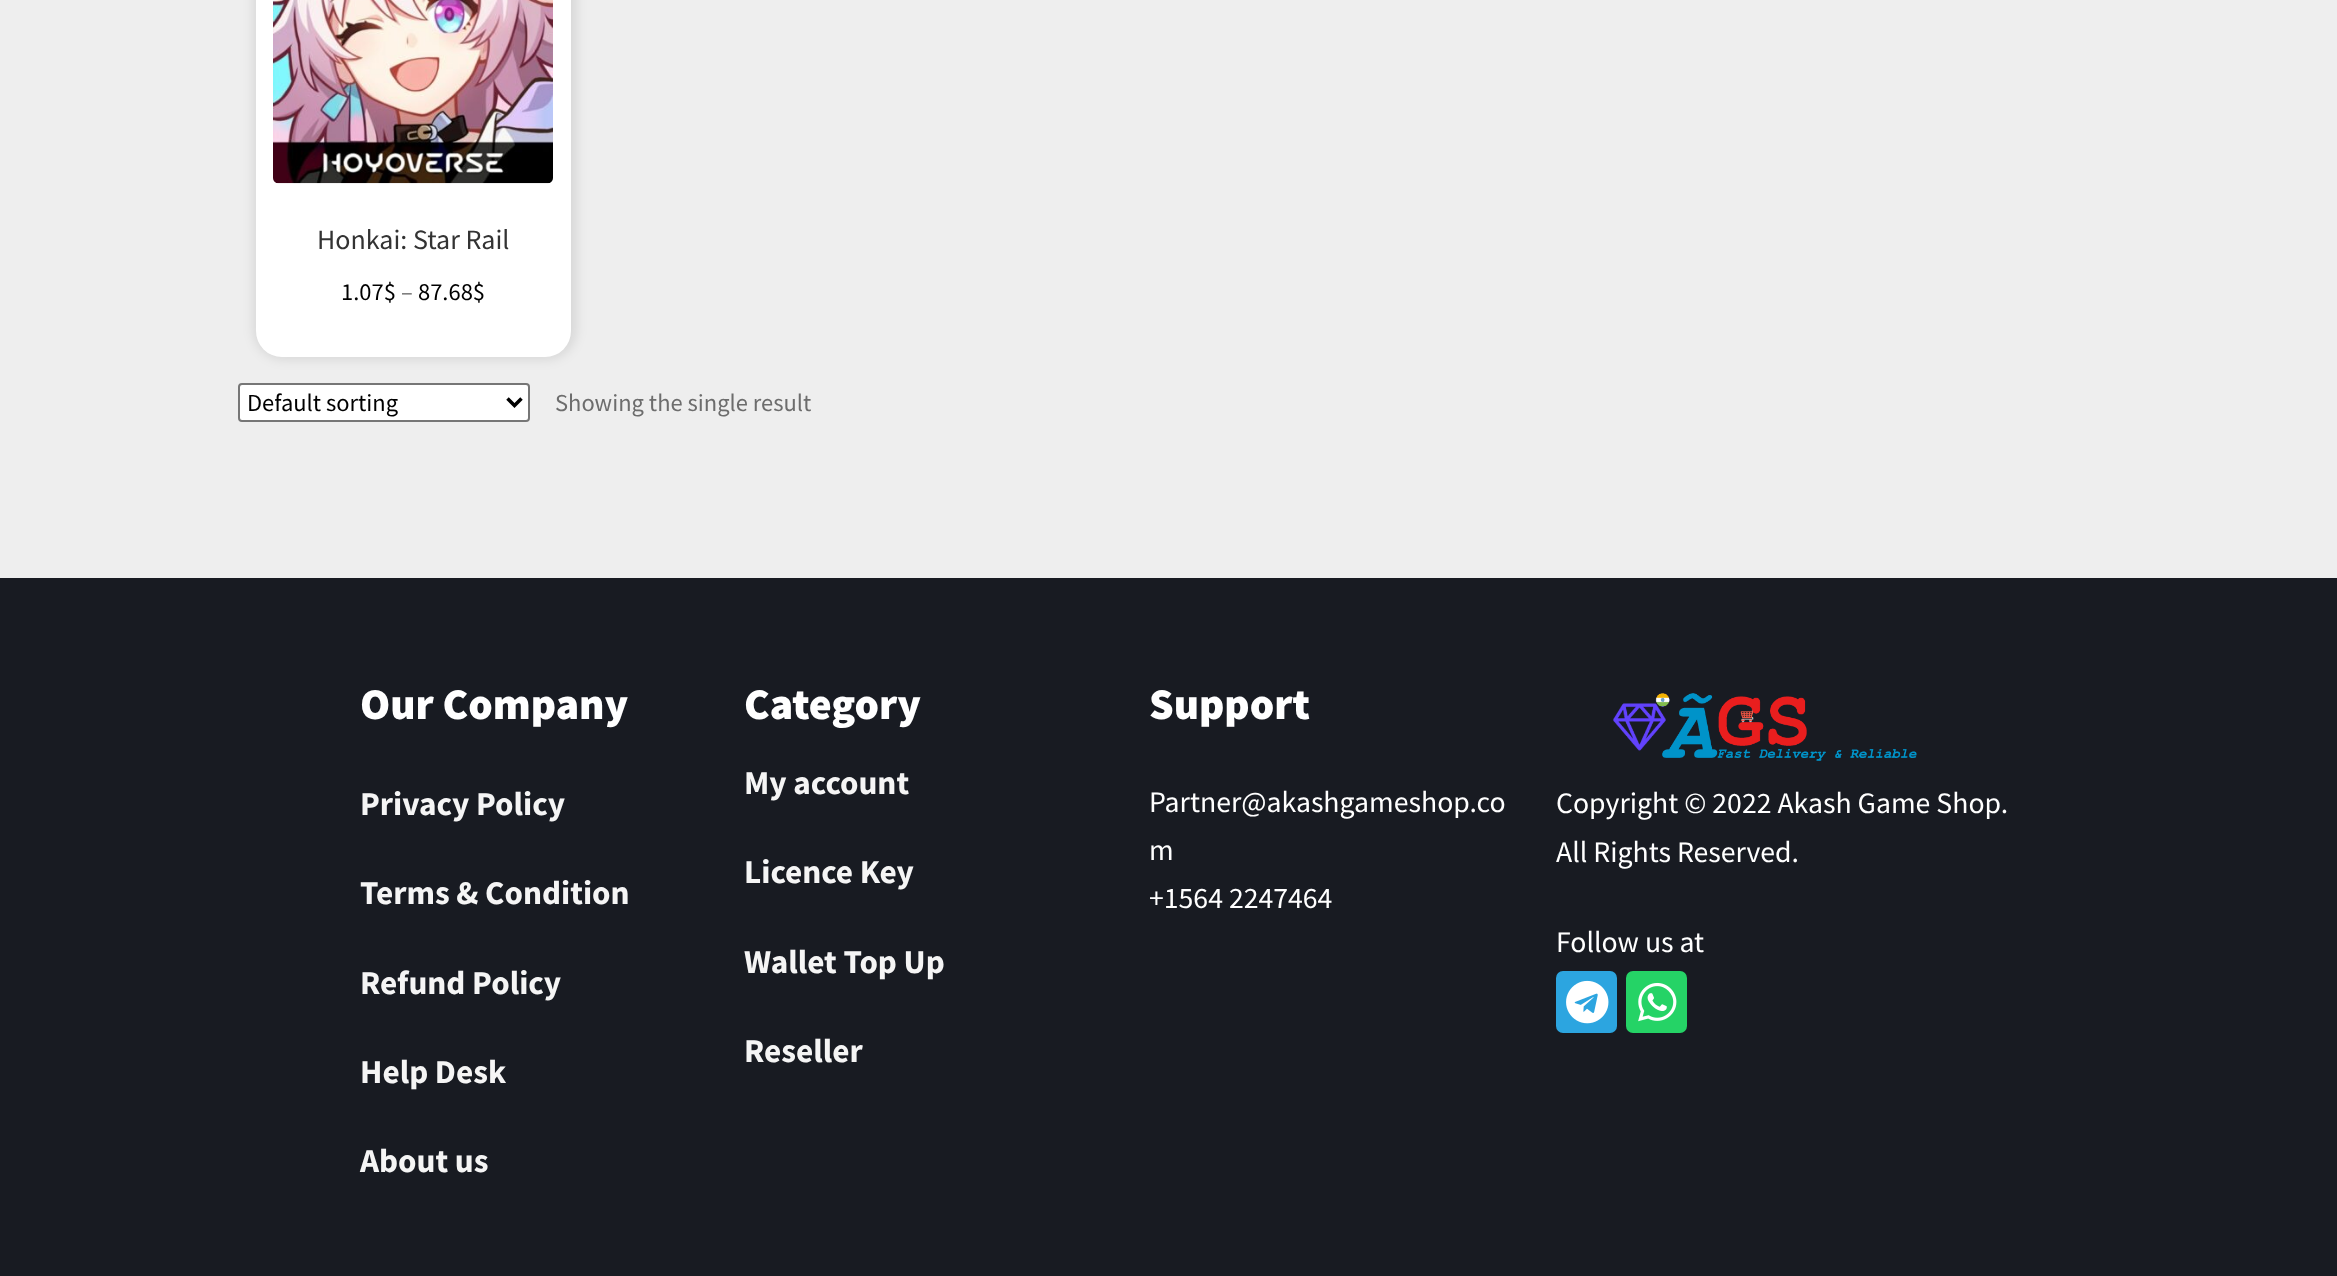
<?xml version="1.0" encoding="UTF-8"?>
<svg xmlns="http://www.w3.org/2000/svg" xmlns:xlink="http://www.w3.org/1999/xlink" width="2337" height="1276">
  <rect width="100%" height="100%" fill="#eeeeee" />
  <rect x="254" y="-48" width="322" height="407" rx="30" fill="#000000" fill-opacity="0.1" filter="blur(6px)" />
  <rect x="256" y="-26" width="315" height="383" rx="26" fill="#ffffff" />
  <image x="273" y="0" width="280" height="184" xlink:href="image1.png" />
  <rect x="239" y="384" width="290" height="37" rx="3" fill="#ffffff" stroke="#767676" stroke-width="2" />
  <path d="M 507.5 398.5 l 7 7 l 7 -7" fill="none" stroke="#000000" stroke-width="3.5" />
  <rect y="578" width="2337" height="698" fill="#181b22" />
  <image x="1613" y="693" width="304" height="68" xlink:href="image2.png" />
  <rect x="1556" y="971" width="61" height="62" rx="7" fill="#2ca5e0" />
  <image x="1566" y="980" width="43" height="44" xlink:href="image3.png" />
  <rect x="1626" y="971" width="61" height="62" rx="7" fill="#25d366" />
  <image x="1638" y="982" width="39" height="40" xlink:href="image4.png" />
  <text x="317" y="249" style="font-family: Source Sans Pro; font-size: 28px; fill: #333333">Honkai: Star Rail</text>
  <text x="341" y="300" style="font-family: Source Sans Pro; font-size: 24.5px; fill: #000000">1.07$</text>
  <text x="401" y="300" style="font-family: Source Sans Pro; font-size: 24.5px; fill: #6d6d6d">–</text>
  <text x="418" y="300" style="font-family: Source Sans Pro; font-size: 24.5px; fill: #000000">87.68$</text>
  <text x="247" y="411" style="font-family: Source Sans Pro; font-size: 24.5px; fill: #000000">Default sorting</text>
  <text x="555" y="411" style="font-family: Source Sans Pro; font-size: 24.5px; fill: #6d6d6d">Showing the single result</text>
  <text x="360" y="719" style="font-family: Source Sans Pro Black; font-size: 43.75px; font-weight: 900; fill: #ffffff">Our Company</text>
  <text x="360" y="815" style="font-family: Source Sans Pro; font-size: 33.25px; font-weight: bold; fill: #f5f5f5">Privacy Policy</text>
  <text x="360" y="904" style="font-family: Source Sans Pro; font-size: 33.25px; font-weight: bold; fill: #f5f5f5">Terms &amp; Condition</text>
  <text x="360" y="994" style="font-family: Source Sans Pro; font-size: 33.25px; font-weight: bold; fill: #f5f5f5">Refund Policy</text>
  <text x="360" y="1083" style="font-family: Source Sans Pro; font-size: 33.25px; font-weight: bold; fill: #f5f5f5">Help Desk</text>
  <text x="360" y="1172" style="font-family: Source Sans Pro; font-size: 33.25px; font-weight: bold; fill: #f5f5f5">About us</text>
  <text x="744" y="719" style="font-family: Source Sans Pro Black; font-size: 43.75px; font-weight: 900; fill: #ffffff">Category</text>
  <text x="744" y="794" style="font-family: Source Sans Pro; font-size: 33.25px; font-weight: bold; fill: #f5f5f5">My account</text>
  <text x="744" y="883" style="font-family: Source Sans Pro; font-size: 33.25px; font-weight: bold; fill: #f5f5f5">Licence Key</text>
  <text x="744" y="973" style="font-family: Source Sans Pro; font-size: 33.25px; font-weight: bold; fill: #f5f5f5">Wallet Top Up</text>
  <text x="744" y="1062" style="font-family: Source Sans Pro; font-size: 33.25px; font-weight: bold; fill: #f5f5f5">Reseller</text>
  <text x="1149" y="719" style="font-family: Source Sans Pro Black; font-size: 43.75px; font-weight: 900; fill: #ffffff">Support</text>
  <text x="1149" y="812" style="font-family: Source Sans Pro; font-size: 29.75px; fill: #ffffff">Partner@akashgameshop.co</text>
  <text x="1149" y="860" style="font-family: Source Sans Pro; font-size: 29.75px; fill: #ffffff">m</text>
  <text x="1149" y="908" style="font-family: Source Sans Pro; font-size: 29.75px; fill: #ffffff">+1564 2247464</text>
  <text x="1556" y="813" style="font-family: Source Sans Pro; font-size: 29.75px; fill: #ffffff">Copyright © 2022 Akash Game Shop.</text>
  <text x="1556" y="862" style="font-family: Source Sans Pro; font-size: 29.75px; fill: #ffffff">All Rights Reserved.</text>
  <text x="1556" y="952" style="font-family: Source Sans Pro; font-size: 29.75px; fill: #ffffff">Follow us at</text>
</svg>
